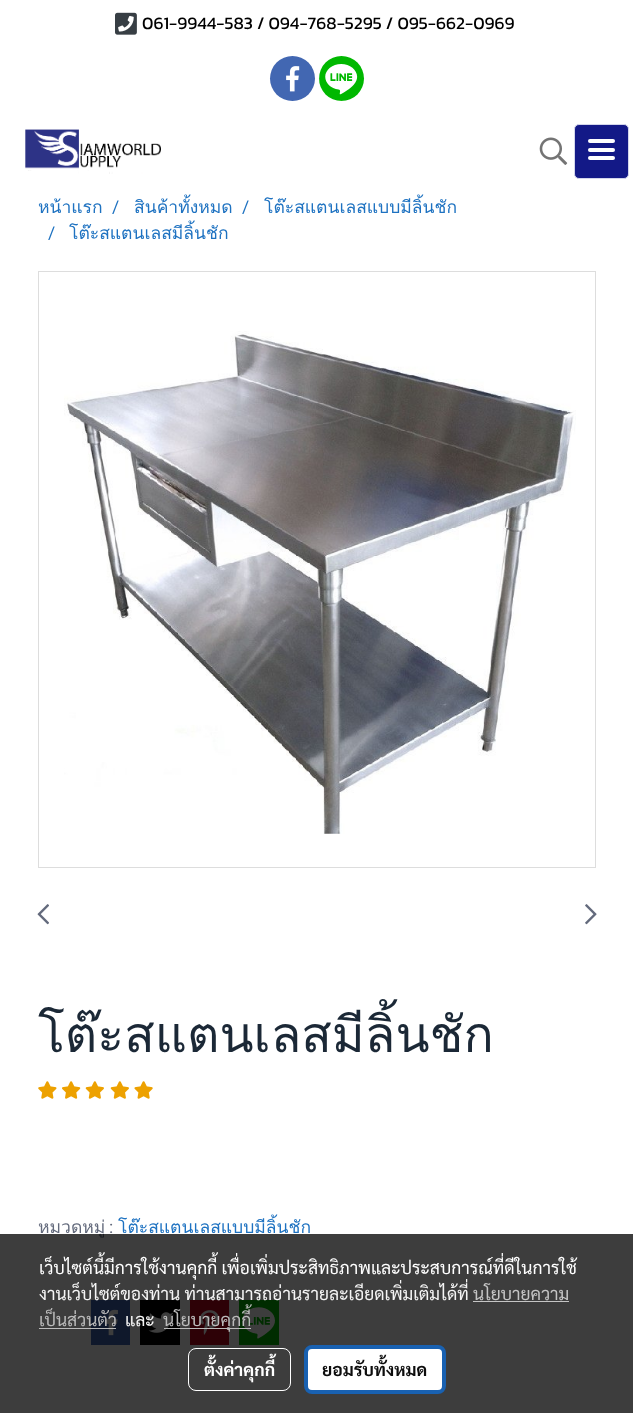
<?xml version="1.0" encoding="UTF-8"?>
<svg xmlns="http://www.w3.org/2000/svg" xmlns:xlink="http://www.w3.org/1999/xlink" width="633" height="1413">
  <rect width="100%" height="100%" fill="#ffffff" />
  <image x="115" y="12" width="22" height="23" xlink:href="image1.png" />
  <circle cx="292.5" cy="78.5" r="22.5" fill="#4267b2" />
  <image x="286" y="66" width="14" height="26" xlink:href="image2.png" />
  <circle cx="341.5" cy="78.5" r="22.5" fill="#00b800" />
  <image x="319" y="64" width="39" height="37" xlink:href="image3.png" />
  <image x="25" y="129" width="136" height="45" xlink:href="image4.png" />
  <image x="539" y="137" width="29" height="28" xlink:href="image5.png" />
  <rect x="574.5" y="124.5" width="54" height="54" rx="4.5" fill="#131987" stroke="#d3d6eb" />
  <rect x="588" y="148" width="27" height="4" rx="2" fill="#ffffff" />
  <rect x="588" y="139" width="27" height="4" rx="2" fill="#ffffff" />
  <rect x="588" y="156" width="27" height="4" rx="2" fill="#ffffff" />
  <rect x="38.5" y="271.5" width="557" height="596" fill="none" stroke="#dddddd" />
  <image x="64" y="331" width="512" height="503" xlink:href="image6.png" />
  <image x="37" y="904" width="12" height="21" xlink:href="image7.png" />
  <image x="585" y="904" width="12" height="21" xlink:href="image8.png" />
  <image x="38" y="1081" width="19" height="18" xlink:href="image9.png" />
  <image x="62" y="1081" width="19" height="18" xlink:href="image10.png" />
  <image x="85" y="1081" width="19" height="18" xlink:href="image11.png" />
  <image x="110" y="1081" width="19" height="18" xlink:href="image11.png" />
  <image x="134" y="1081" width="19" height="18" xlink:href="image12.png" />
  <rect x="91" y="1300" width="39" height="45" fill="#4267b2" />
  <image x="104" y="1309" width="14" height="27" xlink:href="image13.png" />
  <rect x="140" y="1300" width="40" height="45" fill="#000000" />
  <image x="148" y="1312" width="26" height="21" xlink:href="image14.png" />
  <rect x="190" y="1300" width="39" height="45" fill="#bd081c" />
  <image x="199" y="1310" width="20" height="25" xlink:href="image15.png" />
  <rect x="239" y="1300" width="40" height="45" fill="#00b800" />
  <image x="242" y="1307" width="33" height="32" xlink:href="image16.png" />
  <text x="142" y="29" style="font-family: Kanit; font-size: 17.5px; fill: #000000">061-9944-583 / 094-768-5295 / 095-662-0969</text>
  <text x="38" y="213" style="font-family: Loma; font-size: 17.5px; fill: #1e72c1">หน้าแรก</text>
  <text x="112" y="213" style="font-family: Roboto; font-size: 17.5px; fill: #1e72c1">/</text>
  <text x="134" y="213" style="font-family: Loma; font-size: 17.5px; fill: #1e72c1">สินค้าทั้งหมด</text>
  <text x="242" y="213" style="font-family: Roboto; font-size: 17.5px; fill: #1e72c1">/</text>
  <text x="264" y="213" style="font-family: Loma; font-size: 17.5px; fill: #1e72c1">โต๊ะสแตนเลสแบบมีลิ้นชัก</text>
  <text x="48" y="239" style="font-family: Roboto; font-size: 17.5px; fill: #1e72c1">/</text>
  <text x="69" y="239" style="font-family: Loma; font-size: 17.5px; fill: #1e72c1">โต๊ะสแตนเลสมีลิ้นชัก</text>
  <text x="38" y="1052" style="font-family: Loma; font-size: 50px; fill: #1b2836">โต๊ะสแตนเลสมีลิ้นชัก</text>
  <text x="38" y="1233" style="font-family: Loma; font-size: 17.5px; fill: #636a7c">หมวดหมู่</text>
  <text x="109" y="1233" style="font-family: Roboto; font-size: 17.5px; fill: #636a7c">:</text>
  <text x="118" y="1233" style="font-family: Loma; font-size: 17.5px; fill: #1e72c1">โต๊ะสแตนเลสแบบมีลิ้นชัก</text>
  <rect y="1234" width="633" height="179" fill="#000000" fill-opacity="0.76" />
  <text x="39" y="1274" style="font-family: Sarabun; font-size: 17.5px; fill: #ffffff">เว็บไซต์นี้มีการใช้งานคุกกี้ เพื่อเพิ่มประสิทธิภาพและประสบการณ์ที่ดีในการใช้</text>
  <text x="39" y="1300" style="font-family: Sarabun; font-size: 17.5px; fill: #f5f5f5">งานเว็บไซต์ของท่าน ท่านสามารถอ่านรายละเอียดเพิ่มเติมได้ที่</text>
  <text x="473" y="1300" style="font-family: Sarabun; font-size: 17.5px; fill: #c5c5c5">นโยบายความ</text>
  <rect x="473" y="1301" width="96" height="1" fill="#c5c5c5" />
  <text x="39" y="1326" style="font-family: Sarabun; font-size: 17.5px; fill: #bbbbbb">เป็นส่วนตัว</text>
  <rect x="39" y="1328" width="77" height="1" fill="#c2c2c2" fill-opacity="0.95" />
  <text x="125" y="1326" style="font-family: Sarabun; font-size: 17.5px; fill: #f5f5f5">และ</text>
  <rect x="164" y="1328" width="87" height="1" fill="#c2c2c2" fill-opacity="0.95" />
  <text x="163" y="1326" style="font-family: Sarabun; font-size: 17.5px; fill: #bbbbbb">นโยบายคุกกี้</text>
  <rect x="188.5" y="1348.5" width="102" height="42" rx="7.5" fill="none" stroke="#ffffff" />
  <text x="204" y="1376" style="font-family: Sarabun; font-size: 17.5px; font-weight: bold; fill: #ffffff">ตั้งค่าคุกกี้</text>
  <rect x="306" y="1347" width="138" height="45" rx="6" fill="#ffffff" stroke="#1961b1" stroke-width="4" />
  <text x="322" y="1376" style="font-family: Sarabun; font-size: 17.5px; font-weight: bold; fill: #0d0d0d">ยอมรับทั้งหมด</text>
</svg>
